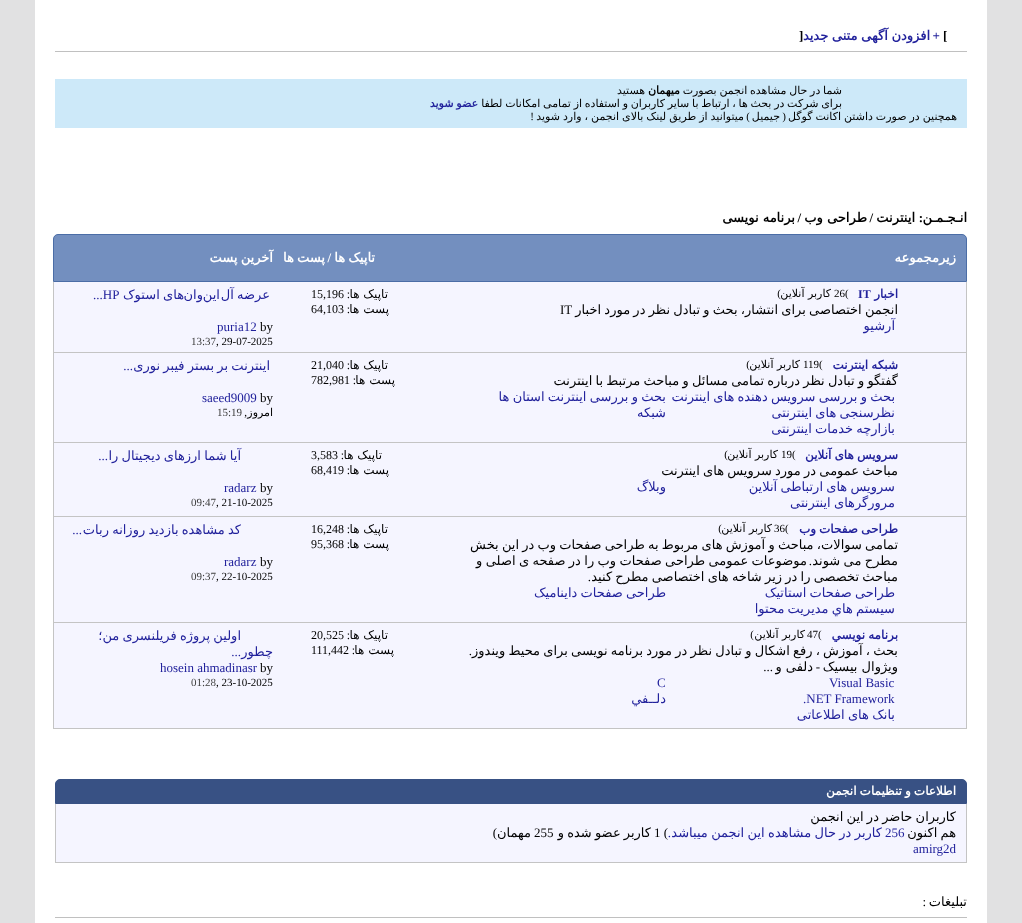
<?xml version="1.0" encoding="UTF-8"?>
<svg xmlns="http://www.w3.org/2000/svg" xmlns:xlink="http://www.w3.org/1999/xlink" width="1022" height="923">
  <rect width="100%" height="100%" fill="#e1e1e2" />
  <rect x="35" width="952" height="923" fill="#ffffff" />
  <rect x="55" y="51" width="912" height="1" fill="#c0c0c0" />
  <rect x="55" y="79" width="912" height="49" fill="#cde9f9" />
  <path d="M 58 234.5 h 904 c 2.5 0 4.5 2 4.5 4.5 v 42.5 h -913 v -42.5 c 0 -2.5 2 -4.5 4.5 -4.5 z" fill="#738fbf" stroke="#4b6da6" />
  <rect x="54" y="282" width="912" height="70" fill="#f5f5ff" />
  <rect x="966" y="282" width="1" height="447" fill="#c4c4c4" />
  <rect x="53" y="352" width="914" height="1" fill="#c4c4c4" />
  <rect x="53" y="282" width="1" height="71" fill="#c4c4c4" />
  <rect x="54" y="353" width="912" height="89" fill="#f5f5ff" />
  <rect x="53" y="442" width="914" height="1" fill="#c4c4c4" />
  <rect x="53" y="353" width="1" height="90" fill="#c4c4c4" />
  <rect x="54" y="443" width="912" height="73" fill="#f5f5ff" />
  <rect x="53" y="516" width="914" height="1" fill="#c4c4c4" />
  <rect x="53" y="443" width="1" height="74" fill="#c4c4c4" />
  <rect x="54" y="517" width="912" height="105" fill="#f5f5ff" />
  <rect x="53" y="622" width="914" height="1" fill="#c4c4c4" />
  <rect x="53" y="517" width="1" height="106" fill="#c4c4c4" />
  <rect x="54" y="623" width="912" height="105" fill="#f5f5ff" />
  <rect x="53" y="728" width="914" height="1" fill="#c4c4c4" />
  <rect x="53" y="623" width="1" height="106" fill="#c4c4c4" />
  <path d="M 60 779.5 h 902 c 2.5 0 4.5 2 4.5 4.5 v 19.5 h -911 v -19.5 c 0 -2.5 2 -4.5 4.5 -4.5 z" fill="#385184" stroke="#385184" />
  <rect x="56" y="804" width="910" height="58" fill="#f5f5ff" />
  <rect x="966" y="804" width="1" height="59" fill="#c4c4c4" />
  <rect x="55" y="862" width="912" height="1" fill="#c4c4c4" />
  <rect x="55" y="804" width="1" height="59" fill="#c4c4c4" />
  <rect x="55" y="917" width="912" height="1" fill="#c0c0c0" />
  <text x="943" y="40" style="font-family: Liberation Serif; font-size: 13px; font-weight: bold; fill: #000000">[</text>
  <text x="940" y="40" style="font-family: Liberation Serif; font-size: 13px; font-weight: bold; direction: rtl; fill: #22229c">+</text>
  <text x="930" y="40" word-spacing="-0.5" style="font-family: DejaVu Sans; font-size: 13px; font-weight: bold; direction: rtl; fill: #22229c">افزودن آگهی متنی جدید</text>
  <text x="799" y="40" style="font-family: Liberation Serif; font-size: 13px; font-weight: bold; fill: #000000">]</text>
  <text x="842" y="94" word-spacing="-0.75" style="font-family: DejaVu Sans; font-size: 11px; direction: rtl; fill: #000000">شما در حال مشاهده انجمن بصورت</text>
  <text x="680" y="94" style="font-family: DejaVu Sans; font-size: 11px; font-weight: bold; direction: rtl; fill: #000000">میهمان</text>
  <text x="645" y="94" style="font-family: DejaVu Sans; font-size: 11px; direction: rtl; fill: #000000">هستید</text>
  <text x="842" y="107" word-spacing="-0.75" style="font-family: DejaVu Sans; font-size: 11px; direction: rtl; fill: #000000">برای شرکت در بحث ها ، ارتباط با سایر کاربران و استفاده از تمامی امکانات لطفا</text>
  <text x="478" y="107" word-spacing="-0.75" style="font-family: DejaVu Sans; font-size: 11px; font-weight: bold; direction: rtl; fill: #22229c">عضو شوید</text>
  <text x="957" y="120" word-spacing="-0.5" style="font-family: DejaVu Sans; font-size: 11px; direction: rtl; fill: #000000">همچنین در صورت داشتن اکانت گوگل</text>
  <text x="786" y="120" style="font-family: Liberation Serif; font-size: 11px; direction: rtl; fill: #000000">(</text>
  <text x="780" y="120" style="font-family: DejaVu Sans; font-size: 11px; direction: rtl; fill: #000000">جیمیل</text>
  <text x="750" y="120" style="font-family: Liberation Serif; font-size: 11px; direction: rtl; fill: #000000">)</text>
  <text x="744" y="120" word-spacing="-0.5" style="font-family: DejaVu Sans; font-size: 11px; direction: rtl; fill: #000000">میتوانید از طریق لینک بالای انجمن ، وارد شوید</text>
  <text x="534" y="120" style="font-family: Liberation Serif; font-size: 11px; direction: rtl; fill: #000000">!</text>
  <text x="967" y="222" style="font-family: DejaVu Sans; font-size: 13px; font-weight: bold; direction: rtl; fill: #000000">انـجـمـن</text>
  <text x="923" y="222" style="font-family: Liberation Serif; font-size: 13px; font-weight: bold; direction: rtl; fill: #000000">:</text>
  <text x="915" y="222" style="font-family: DejaVu Sans; font-size: 13px; font-weight: bold; direction: rtl; fill: #000000">اینترنت</text>
  <text x="873" y="222" style="font-family: Liberation Serif; font-size: 13px; font-weight: bold; direction: rtl; fill: #000000">/</text>
  <text x="867" y="222" style="font-family: DejaVu Sans; font-size: 13px; font-weight: bold; direction: rtl; fill: #000000">طراحی وب</text>
  <text x="801" y="222" style="font-family: Liberation Serif; font-size: 13px; font-weight: bold; direction: rtl; fill: #000000">/</text>
  <text x="795" y="222" style="font-family: DejaVu Sans; font-size: 13px; font-weight: bold; direction: rtl; fill: #000000">برنامه نویسی</text>
  <text x="956" y="262" style="font-family: DejaVu Sans; font-size: 13px; font-weight: bold; direction: rtl; fill: #ffffff">زيرمجموعه</text>
  <text x="375" y="262" word-spacing="-1" style="font-family: DejaVu Sans; font-size: 13px; font-weight: bold; direction: rtl; fill: #ffffff">تاپیک ها</text>
  <text x="331" y="262" style="font-family: Liberation Serif; font-size: 13px; font-weight: bold; direction: rtl; fill: #ffffff">/</text>
  <text x="325" y="262" word-spacing="-1" style="font-family: DejaVu Sans; font-size: 13px; font-weight: bold; direction: rtl; fill: #ffffff">پست ها</text>
  <text x="273" y="262" word-spacing="-0.9" style="font-family: DejaVu Sans; font-size: 13px; font-weight: bold; direction: rtl; fill: #ffffff">آخرين پست</text>
  <text x="898" y="298" style="font-family: DejaVu Sans; font-size: 12px; font-weight: bold; direction: rtl; fill: #22229c">اخبار</text>
  <text x="858" y="298" style="font-family: Liberation Serif; font-size: 12px; font-weight: bold; fill: #22229c">IT</text>
  <text x="834" y="297" style="font-family: Liberation Serif; font-size: 11px; fill: #000000">26(</text>
  <text x="831" y="297" style="font-family: DejaVu Sans; font-size: 11px; direction: rtl; fill: #000000">کاربر آنلاین</text>
  <text x="781" y="297" style="font-family: Liberation Serif; font-size: 11px; direction: rtl; fill: #000000">)</text>
  <text x="898" y="314" word-spacing="-0.9" style="font-family: DejaVu Sans; font-size: 13px; direction: rtl; fill: #000000">انجمن اختصاصی برای انتشار، بحث و تبادل نظر در مورد اخبار</text>
  <text x="560" y="314" style="font-family: Liberation Serif; font-size: 13px; fill: #000000">IT</text>
  <text x="895" y="330" style="font-family: DejaVu Sans; font-size: 13px; direction: rtl; fill: #22229c">آرشیو</text>
  <text x="388" y="298" style="font-family: DejaVu Sans; font-size: 12px; direction: rtl; fill: #000000">تاپيک ها</text>
  <text x="350" y="298" style="font-family: Liberation Serif; font-size: 12px; direction: rtl; fill: #000000">:</text>
  <text x="311" y="298" style="font-family: Liberation Serif; font-size: 12px; fill: #000000">15,196</text>
  <text x="389" y="313" style="font-family: DejaVu Sans; font-size: 12px; direction: rtl; fill: #000000">پست ها</text>
  <text x="350" y="313" style="font-family: Liberation Serif; font-size: 12px; direction: rtl; fill: #000000">:</text>
  <text x="311" y="313" style="font-family: Liberation Serif; font-size: 12px; fill: #000000">64,103</text>
  <text x="270" y="299" word-spacing="-0.9" style="font-family: DejaVu Sans; font-size: 13px; direction: rtl; fill: #22229c">عرضه آل</text>
  <text x="220" y="299" style="font-family: DejaVu Sans; font-size: 13px; direction: rtl; fill: #22229c">این</text>
  <text x="203" y="299" style="font-family: DejaVu Sans; font-size: 13px; direction: rtl; fill: #22229c">وان</text>
  <text x="184" y="299" word-spacing="-0.9" style="font-family: DejaVu Sans; font-size: 13px; direction: rtl; fill: #22229c">های استوک</text>
  <text x="93" y="299" style="font-family: Liberation Serif; font-size: 13px; fill: #22229c">...HP</text>
  <text x="260" y="331" style="font-family: Liberation Serif; font-size: 13px; fill: #000000">by</text>
  <text x="217" y="331" style="font-family: Liberation Serif; font-size: 13px; fill: #22229c">puria12</text>
  <text x="216" y="345" style="font-family: Liberation Serif; font-size: 11px; fill: #000000">, 29-07-2025</text>
  <text x="191" y="345" style="font-family: Liberation Serif; font-size: 11px; fill: #3e3e3e">13:37</text>
  <text x="898" y="369" word-spacing="-0.75" style="font-family: DejaVu Sans; font-size: 12px; font-weight: bold; direction: rtl; fill: #22229c">شبکه اینترنت</text>
  <text x="803" y="368" style="font-family: Liberation Serif; font-size: 11px; fill: #000000">119(</text>
  <text x="800" y="368" style="font-family: DejaVu Sans; font-size: 11px; direction: rtl; fill: #000000">کاربر آنلاین</text>
  <text x="750" y="368" style="font-family: Liberation Serif; font-size: 11px; direction: rtl; fill: #000000">)</text>
  <text x="898" y="385" word-spacing="-0.9" style="font-family: DejaVu Sans; font-size: 13px; direction: rtl; fill: #000000">گفتگو و تبادل نظر درباره تمامی مسائل و مباحث مرتبط با اینترنت</text>
  <text x="895" y="401" word-spacing="-0.9" style="font-family: DejaVu Sans; font-size: 13px; direction: rtl; fill: #22229c">بحث و بررسی سرويس دهنده های اينترنت</text>
  <text x="666" y="401" word-spacing="-0.9" style="font-family: DejaVu Sans; font-size: 13px; direction: rtl; fill: #22229c">بحث و بررسی اينترنت استان ها</text>
  <text x="895" y="417" word-spacing="-0.9" style="font-family: DejaVu Sans; font-size: 13px; direction: rtl; fill: #22229c">نظرسنجی های اینترنتی</text>
  <text x="666" y="417" style="font-family: DejaVu Sans; font-size: 13px; direction: rtl; fill: #22229c">شبكه</text>
  <text x="895" y="433" word-spacing="-0.9" style="font-family: DejaVu Sans; font-size: 13px; direction: rtl; fill: #22229c">بازارچه خدمات اینترنتی</text>
  <text x="388" y="369" style="font-family: DejaVu Sans; font-size: 12px; direction: rtl; fill: #000000">تاپيک ها</text>
  <text x="350" y="369" style="font-family: Liberation Serif; font-size: 12px; direction: rtl; fill: #000000">:</text>
  <text x="311" y="369" style="font-family: Liberation Serif; font-size: 12px; fill: #000000">21,040</text>
  <text x="395" y="384" style="font-family: DejaVu Sans; font-size: 12px; direction: rtl; fill: #000000">پست ها</text>
  <text x="356" y="384" style="font-family: Liberation Serif; font-size: 12px; direction: rtl; fill: #000000">:</text>
  <text x="311" y="384" style="font-family: Liberation Serif; font-size: 12px; fill: #000000">782,981</text>
  <text x="270" y="370" word-spacing="-0.9" style="font-family: DejaVu Sans; font-size: 13px; direction: rtl; fill: #22229c">اینترنت بر بستر فیبر نوری</text>
  <text x="133" y="370" style="font-family: Liberation Serif; font-size: 13px; direction: rtl; fill: #22229c">...</text>
  <text x="260" y="402" style="font-family: Liberation Serif; font-size: 13px; fill: #000000">by</text>
  <text x="202" y="402" style="font-family: Liberation Serif; font-size: 13px; fill: #22229c">saeed9009</text>
  <text x="247" y="416" style="font-family: Liberation Serif; font-size: 11px; direction: rtl; fill: #000000">,</text>
  <text x="273" y="416" style="font-family: DejaVu Sans; font-size: 11px; direction: rtl; fill: #000000">امروز</text>
  <text x="217" y="416" style="font-family: Liberation Serif; font-size: 11px; fill: #3e3e3e">15:19</text>
  <text x="898" y="459" word-spacing="-0.75" style="font-family: DejaVu Sans; font-size: 12px; font-weight: bold; direction: rtl; fill: #22229c">سرویس های آنلاین</text>
  <text x="781" y="458" style="font-family: Liberation Serif; font-size: 11px; fill: #000000">19(</text>
  <text x="778" y="458" style="font-family: DejaVu Sans; font-size: 11px; direction: rtl; fill: #000000">کاربر آنلاین</text>
  <text x="728" y="458" style="font-family: Liberation Serif; font-size: 11px; direction: rtl; fill: #000000">)</text>
  <text x="898" y="475" word-spacing="-0.9" style="font-family: DejaVu Sans; font-size: 13px; direction: rtl; fill: #000000">مباحث عمومی در مورد سرویس های اینترنت</text>
  <text x="895" y="491" word-spacing="-0.9" style="font-family: DejaVu Sans; font-size: 13px; direction: rtl; fill: #22229c">سرويس های ارتباطی آنلاین</text>
  <text x="666" y="491" style="font-family: DejaVu Sans; font-size: 13px; direction: rtl; fill: #22229c">وبلاگ</text>
  <text x="895" y="507" word-spacing="-0.9" style="font-family: DejaVu Sans; font-size: 13px; direction: rtl; fill: #22229c">مرورگرهای اينترنتی</text>
  <text x="382" y="459" style="font-family: DejaVu Sans; font-size: 12px; direction: rtl; fill: #000000">تاپيک ها</text>
  <text x="344" y="459" style="font-family: Liberation Serif; font-size: 12px; direction: rtl; fill: #000000">:</text>
  <text x="311" y="459" style="font-family: Liberation Serif; font-size: 12px; fill: #000000">3,583</text>
  <text x="389" y="474" style="font-family: DejaVu Sans; font-size: 12px; direction: rtl; fill: #000000">پست ها</text>
  <text x="350" y="474" style="font-family: Liberation Serif; font-size: 12px; direction: rtl; fill: #000000">:</text>
  <text x="311" y="474" style="font-family: Liberation Serif; font-size: 12px; fill: #000000">68,419</text>
  <text x="241" y="460" word-spacing="-0.9" style="font-family: DejaVu Sans; font-size: 13px; direction: rtl; fill: #22229c">آیا شما ارزهای دیجیتال را</text>
  <text x="108" y="460" style="font-family: Liberation Serif; font-size: 13px; direction: rtl; fill: #22229c">...</text>
  <text x="260" y="492" style="font-family: Liberation Serif; font-size: 13px; fill: #000000">by</text>
  <text x="224" y="492" style="font-family: Liberation Serif; font-size: 13px; fill: #22229c">radarz</text>
  <text x="216" y="506" style="font-family: Liberation Serif; font-size: 11px; fill: #000000">, 21-10-2025</text>
  <text x="191" y="506" style="font-family: Liberation Serif; font-size: 11px; fill: #3e3e3e">09:47</text>
  <text x="898" y="533" word-spacing="-0.75" style="font-family: DejaVu Sans; font-size: 12px; font-weight: bold; direction: rtl; fill: #22229c">طراحی صفحات وب</text>
  <text x="774" y="532" style="font-family: Liberation Serif; font-size: 11px; fill: #000000">36(</text>
  <text x="772" y="532" style="font-family: DejaVu Sans; font-size: 11px; direction: rtl; fill: #000000">کاربر آنلاین</text>
  <text x="722" y="532" style="font-family: Liberation Serif; font-size: 11px; direction: rtl; fill: #000000">)</text>
  <text x="898" y="549" word-spacing="-0.9" style="font-family: DejaVu Sans; font-size: 13px; direction: rtl; fill: #000000">تمامی سوالات، مباحث و آموزش های مربوط به طراحی صفحات وب در این بخش</text>
  <text x="898" y="565" word-spacing="-0.75" style="font-family: DejaVu Sans; font-size: 13px; direction: rtl; fill: #000000">مطرح می شوند</text>
  <text x="812" y="565" style="font-family: Liberation Serif; font-size: 13px; direction: rtl; fill: #000000">.</text>
  <text x="807" y="565" word-spacing="-0.75" style="font-family: DejaVu Sans; font-size: 13px; direction: rtl; fill: #000000">موضوعات عمومی طراحی صفحات وب را در صفحه ی اصلی و</text>
  <text x="898" y="581" word-spacing="-0.9" style="font-family: DejaVu Sans; font-size: 13px; direction: rtl; fill: #000000">مباحث تخصصی را در زیر شاخه های اختصاصی مطرح کنید</text>
  <text x="591" y="581" style="font-family: Liberation Serif; font-size: 13px; direction: rtl; fill: #000000">.</text>
  <text x="895" y="597" word-spacing="-0.9" style="font-family: DejaVu Sans; font-size: 13px; direction: rtl; fill: #22229c">طراحی صفحات استاتیک</text>
  <text x="666" y="597" word-spacing="-0.9" style="font-family: DejaVu Sans; font-size: 13px; direction: rtl; fill: #22229c">طراحی صفحات داینامیک</text>
  <text x="895" y="613" word-spacing="-0.9" style="font-family: DejaVu Sans; font-size: 13px; direction: rtl; fill: #22229c">سيستم هاي مديريت محتوا</text>
  <text x="388" y="533" style="font-family: DejaVu Sans; font-size: 12px; direction: rtl; fill: #000000">تاپيک ها</text>
  <text x="350" y="533" style="font-family: Liberation Serif; font-size: 12px; direction: rtl; fill: #000000">:</text>
  <text x="311" y="533" style="font-family: Liberation Serif; font-size: 12px; fill: #000000">16,248</text>
  <text x="389" y="548" style="font-family: DejaVu Sans; font-size: 12px; direction: rtl; fill: #000000">پست ها</text>
  <text x="350" y="548" style="font-family: Liberation Serif; font-size: 12px; direction: rtl; fill: #000000">:</text>
  <text x="311" y="548" style="font-family: Liberation Serif; font-size: 12px; fill: #000000">95,368</text>
  <text x="241" y="534" word-spacing="-0.9" style="font-family: DejaVu Sans; font-size: 13px; direction: rtl; fill: #22229c">کد مشاهده بازدید روزانه ربات</text>
  <text x="82" y="534" style="font-family: Liberation Serif; font-size: 13px; direction: rtl; fill: #22229c">...</text>
  <text x="260" y="566" style="font-family: Liberation Serif; font-size: 13px; fill: #000000">by</text>
  <text x="224" y="566" style="font-family: Liberation Serif; font-size: 13px; fill: #22229c">radarz</text>
  <text x="216" y="580" style="font-family: Liberation Serif; font-size: 11px; fill: #000000">, 22-10-2025</text>
  <text x="191" y="580" style="font-family: Liberation Serif; font-size: 11px; fill: #3e3e3e">09:37</text>
  <text x="898" y="639" word-spacing="-0.75" style="font-family: DejaVu Sans; font-size: 12px; font-weight: bold; direction: rtl; fill: #22229c">برنامه نويسي</text>
  <text x="807" y="638" style="font-family: Liberation Serif; font-size: 11px; fill: #000000">47(</text>
  <text x="805" y="638" style="font-family: DejaVu Sans; font-size: 11px; direction: rtl; fill: #000000">کاربر آنلاین</text>
  <text x="754" y="638" style="font-family: Liberation Serif; font-size: 11px; direction: rtl; fill: #000000">)</text>
  <text x="898" y="655" word-spacing="-0.9" style="font-family: DejaVu Sans; font-size: 13px; direction: rtl; fill: #000000">بحث ، آموزش ، رفع اشکال و تبادل نظر در مورد برنامه نويسی برای محيط ويندوز</text>
  <text x="472" y="655" style="font-family: Liberation Serif; font-size: 13px; direction: rtl; fill: #000000">.</text>
  <text x="898" y="671" style="font-family: DejaVu Sans; font-size: 13px; direction: rtl; fill: #000000">ويژوال بيسيک</text>
  <text x="820" y="671" style="font-family: Liberation Serif; font-size: 13px; direction: rtl; fill: #000000">-</text>
  <text x="813" y="671" style="font-family: DejaVu Sans; font-size: 13px; direction: rtl; fill: #000000">دلفی و</text>
  <text x="773" y="671" style="font-family: Liberation Serif; font-size: 13px; direction: rtl; fill: #000000">...</text>
  <text x="829" y="687" style="font-family: Liberation Serif; font-size: 13px; fill: #22229c">Visual Basic</text>
  <text x="657" y="687" style="font-family: Liberation Serif; font-size: 13px; fill: #22229c">C</text>
  <text x="803" y="703" style="font-family: Liberation Serif; font-size: 13px; fill: #22229c">.NET Framework</text>
  <text x="666" y="703" style="font-family: DejaVu Sans; font-size: 13px; direction: rtl; fill: #22229c">دلــفي</text>
  <text x="895" y="719" word-spacing="-0.9" style="font-family: DejaVu Sans; font-size: 13px; direction: rtl; fill: #22229c">بانک های اطلاعاتی</text>
  <text x="388" y="639" style="font-family: DejaVu Sans; font-size: 12px; direction: rtl; fill: #000000">تاپيک ها</text>
  <text x="350" y="639" style="font-family: Liberation Serif; font-size: 12px; direction: rtl; fill: #000000">:</text>
  <text x="311" y="639" style="font-family: Liberation Serif; font-size: 12px; fill: #000000">20,525</text>
  <text x="394" y="654" style="font-family: DejaVu Sans; font-size: 12px; direction: rtl; fill: #000000">پست ها</text>
  <text x="355" y="654" style="font-family: Liberation Serif; font-size: 12px; direction: rtl; fill: #000000">:</text>
  <text x="311" y="654" style="font-family: Liberation Serif; font-size: 12px; fill: #000000">111,442</text>
  <text x="241" y="640" word-spacing="-0.9" style="font-family: DejaVu Sans; font-size: 13px; direction: rtl; fill: #22229c">اولین پروژه فریلنسری من؛</text>
  <text x="241" y="656" style="font-family: Liberation Serif; font-size: 13px; direction: rtl; fill: #22229c">...</text>
  <text x="273" y="656" style="font-family: DejaVu Sans; font-size: 13px; direction: rtl; fill: #22229c">چطور</text>
  <text x="260" y="672" style="font-family: Liberation Serif; font-size: 13px; fill: #000000">by</text>
  <text x="160" y="672" style="font-family: Liberation Serif; font-size: 13px; fill: #22229c">hosein ahmadinasr</text>
  <text x="216" y="686" style="font-family: Liberation Serif; font-size: 11px; fill: #000000">, 23-10-2025</text>
  <text x="191" y="686" style="font-family: Liberation Serif; font-size: 11px; fill: #3e3e3e">01:28</text>
  <text x="956" y="795" word-spacing="-0.75" style="font-family: DejaVu Sans; font-size: 12px; font-weight: bold; direction: rtl; fill: #ffffff">اطلاعات و تنظیمات انجمن</text>
  <text x="956" y="821" word-spacing="-0.9" style="font-family: DejaVu Sans; font-size: 13px; direction: rtl; fill: #000000">کاربران حاضر در این انجمن</text>
  <text x="956" y="837" word-spacing="-0.9" style="font-family: DejaVu Sans; font-size: 13px; direction: rtl; fill: #000000">هم اکنون</text>
  <text x="885" y="837" style="font-family: Liberation Serif; font-size: 13px; fill: #22229c">256</text>
  <text x="882" y="837" word-spacing="-0.75" style="font-family: DejaVu Sans; font-size: 13px; direction: rtl; fill: #22229c">کاربر در حال مشاهده این انجمن میباشد</text>
  <text x="671" y="837" style="font-family: Liberation Serif; font-size: 13px; direction: rtl; fill: #22229c">.</text>
  <text x="654" y="837" style="font-family: Liberation Serif; font-size: 13px; fill: #000000">1 (</text>
  <text x="651" y="837" word-spacing="-1" style="font-family: DejaVu Sans; font-size: 13px; direction: rtl; fill: #000000">کاربر عضو شده و</text>
  <text x="534" y="837" style="font-family: Liberation Serif; font-size: 13px; fill: #000000">255</text>
  <text x="531" y="837" style="font-family: DejaVu Sans; font-size: 13px; direction: rtl; fill: #000000">مهمان</text>
  <text x="497" y="837" style="font-family: Liberation Serif; font-size: 13px; direction: rtl; fill: #000000">)</text>
  <text x="913" y="853" style="font-family: Liberation Serif; font-size: 13px; fill: #22229c">amirg2d</text>
  <text x="967" y="906" style="font-family: DejaVu Sans; font-size: 13px; direction: rtl; fill: #000000">تبلیغات</text>
  <text x="926" y="906" style="font-family: Liberation Serif; font-size: 13px; direction: rtl; fill: #000000">:</text>
</svg>
